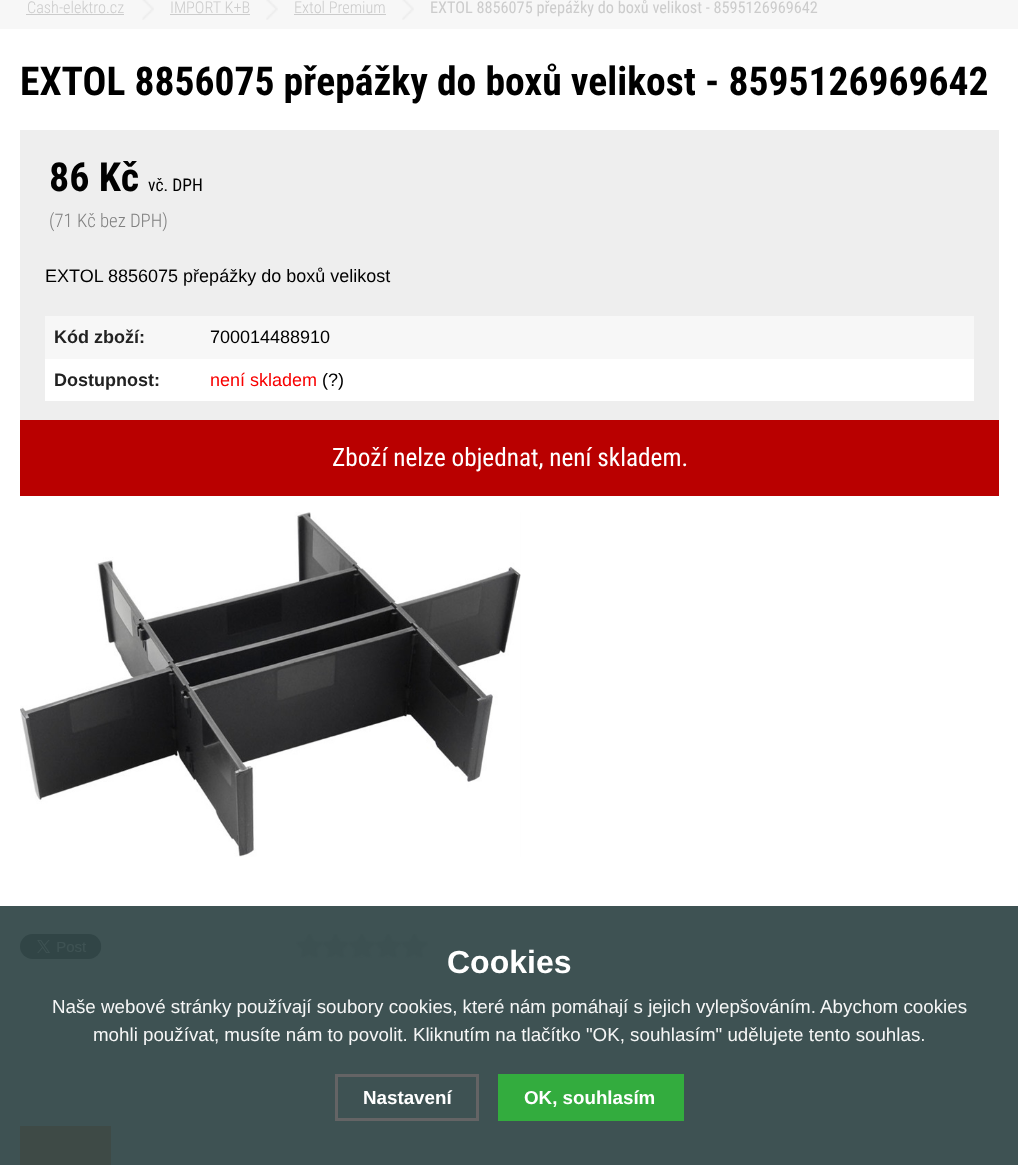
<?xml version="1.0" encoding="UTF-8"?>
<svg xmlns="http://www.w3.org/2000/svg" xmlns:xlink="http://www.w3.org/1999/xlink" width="1018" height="1165">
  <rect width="100%" height="100%" fill="#ffffff" />
  <rect y="906" width="1018" height="259" fill="#3e5253" />
  <rect width="1018" height="29" fill="#f7f7f7" />
  <image x="142" y="0" width="12" height="20" xlink:href="image1.png" />
  <rect x="26" y="14" width="98" height="1" fill="#cccccc" />
  <image x="266" y="0" width="12" height="20" xlink:href="image2.png" />
  <rect x="170" y="14" width="80" height="1" fill="#cccccc" />
  <image x="402" y="0" width="12" height="20" xlink:href="image3.png" />
  <rect x="294" y="14" width="92" height="1" fill="#cccccc" />
  <rect x="20" y="130" width="979" height="290" fill="#eeeeee" />
  <rect x="45" y="316" width="929" height="43" fill="#f7f7f7" />
  <rect x="45" y="359" width="929" height="42" fill="#ffffff" />
  <rect x="20" y="420" width="979" height="76" fill="#b90000" />
  <image x="20" y="512" width="501" height="345" xlink:href="image4.png" />
  <image x="20" y="934" width="82" height="25" xlink:href="image5.png" />
  <image x="296" y="934" width="132" height="24" xlink:href="image6.png" />
  <rect x="20" y="1126" width="91" height="39" fill="#3e4a46" />
  <rect x="336.5" y="1075.5" width="141" height="44" fill="none" stroke="#646465" stroke-width="3" />
  <rect x="498" y="1074" width="186" height="47" fill="#33ac3e" />
  <text x="27" y="13" style="font-family: Roboto Condensed; font-size: 16.25px; font-weight: 300; fill: #cccccc">Cash-elektro.cz</text>
  <text x="170" y="13" style="font-family: Roboto Condensed; font-size: 16.25px; font-weight: 300; fill: #cccccc">IMPORT K+B</text>
  <text x="294" y="13" style="font-family: Roboto Condensed; font-size: 16.25px; font-weight: 300; fill: #cccccc">Extol Premium</text>
  <text x="430" y="13" style="font-family: Roboto Condensed; font-size: 16.25px; fill: #cccccc">EXTOL 8856075 přepážky do boxů velikost - 8595126969642</text>
  <text x="20" y="95" style="font-family: Roboto Condensed; font-size: 39.6px; font-weight: bold; fill: #000000">EXTOL 8856075 přepážky do boxů velikost - 8595126969642</text>
  <text x="49" y="191" style="font-family: Roboto Condensed; font-size: 40px; font-weight: bold; fill: #000000">86 Kč</text>
  <text x="148" y="191" style="font-family: Roboto Condensed; font-size: 17.5px; fill: #000000">vč. DPH</text>
  <text x="49" y="227" style="font-family: Roboto Condensed; font-size: 18.75px; font-weight: 300; fill: #808080">(71 Kč bez DPH)</text>
  <text x="45" y="282" style="font-family: Liberation Sans; font-size: 18px; fill: #000000">EXTOL 8856075 přepážky do boxů velikost</text>
  <text x="54" y="343" style="font-family: Liberation Sans; font-size: 18px; font-weight: bold; fill: #222222">Kód zboží:</text>
  <text x="210" y="343" style="font-family: Liberation Sans; font-size: 18px; fill: #000000">700014488910</text>
  <text x="54" y="386" style="font-family: Liberation Sans; font-size: 18px; font-weight: bold; fill: #222222">Dostupnost:</text>
  <text x="210" y="386" style="font-family: Liberation Sans; font-size: 18px; fill: #f80000">není skladem</text>
  <text x="322" y="386" style="font-family: Liberation Sans; font-size: 18px; fill: #000000">(?)</text>
  <text x="332" y="466" style="font-family: Roboto Condensed; font-size: 25.25px; fill: #ffffff">Zboží nelze objednat, není skladem.</text>
  <text x="447" y="973" style="font-family: Liberation Sans; font-size: 32px; font-weight: bold; fill: #ffffff">Cookies</text>
  <text x="52" y="1013" style="font-family: Liberation Sans; font-size: 18.75px; fill: #f5f6f6">Naše webové stránky používají soubory cookies, které nám pomáhají s jejich vylepšováním. Abychom cookies</text>
  <text x="93" y="1041" style="font-family: Liberation Sans; font-size: 18.75px; fill: #f5f6f6">mohli používat, musíte nám to povolit. Kliknutím na tlačítko "OK, souhlasím" udělujete tento souhlas.</text>
  <text x="363" y="1104" style="font-family: Liberation Sans; font-size: 18.75px; font-weight: bold; fill: #ffffff">Nastavení</text>
  <text x="524" y="1104" style="font-family: Liberation Sans; font-size: 18.75px; font-weight: bold; fill: #ffffff">OK, souhlasím</text>
</svg>
